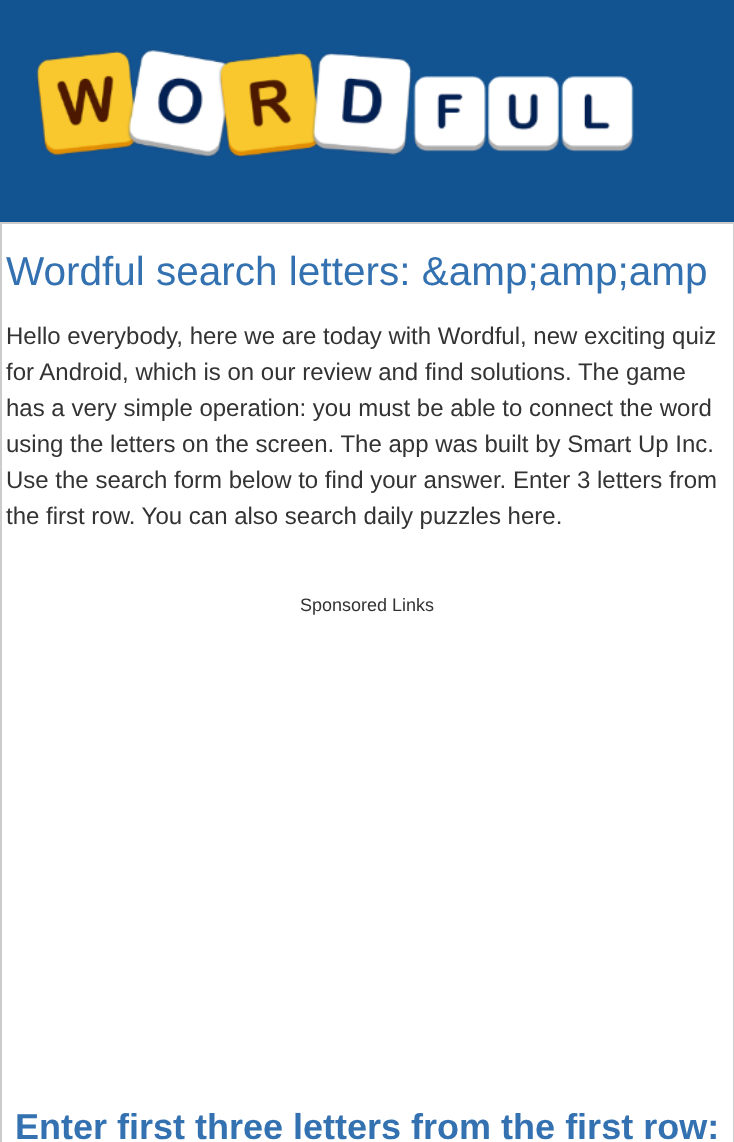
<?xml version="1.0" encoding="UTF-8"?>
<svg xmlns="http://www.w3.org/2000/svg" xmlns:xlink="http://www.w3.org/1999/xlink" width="734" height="1142">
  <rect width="100%" height="100%" fill="#125392" />
  <image x="36" y="49" width="598" height="109" xlink:href="image1.png" />
  <rect x="1" y="223" width="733" height="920" fill="#ffffff" stroke="#cccccc" stroke-width="2" />
  <text x="6" y="285" style="font-family: Liberation Sans; font-size: 40.5px; fill: #3371b1">Wordful search letters: &amp;amp;amp;amp</text>
  <text x="6" y="344" style="font-family: Liberation Sans; font-size: 24px; fill: #333333">Hello everybody, here we are today with Wordful, new exciting quiz</text>
  <text x="6" y="380" style="font-family: Liberation Sans; font-size: 24px; fill: #333333">for Android, which is on our review and find solutions. The game</text>
  <text x="6" y="416" style="font-family: Liberation Sans; font-size: 24px; fill: #333333">has a very simple operation: you must be able to connect the word</text>
  <text x="6" y="452" style="font-family: Liberation Sans; font-size: 24px; fill: #333333">using the letters on the screen. The app was built by Smart Up Inc.</text>
  <text x="6" y="488" style="font-family: Liberation Sans; font-size: 24px; fill: #333333">Use the search form below to find your answer. Enter 3 letters from</text>
  <text x="6" y="524" style="font-family: Liberation Sans; font-size: 24px; fill: #333333">the first row. You can also search daily puzzles here.</text>
  <text x="300" y="611" style="font-family: Liberation Sans; font-size: 18px; fill: #333333">Sponsored Links</text>
  <text x="15" y="1139" style="font-family: Liberation Sans; font-size: 36px; font-weight: bold; fill: #3371b1">Enter first three letters from the first row:</text>
</svg>
